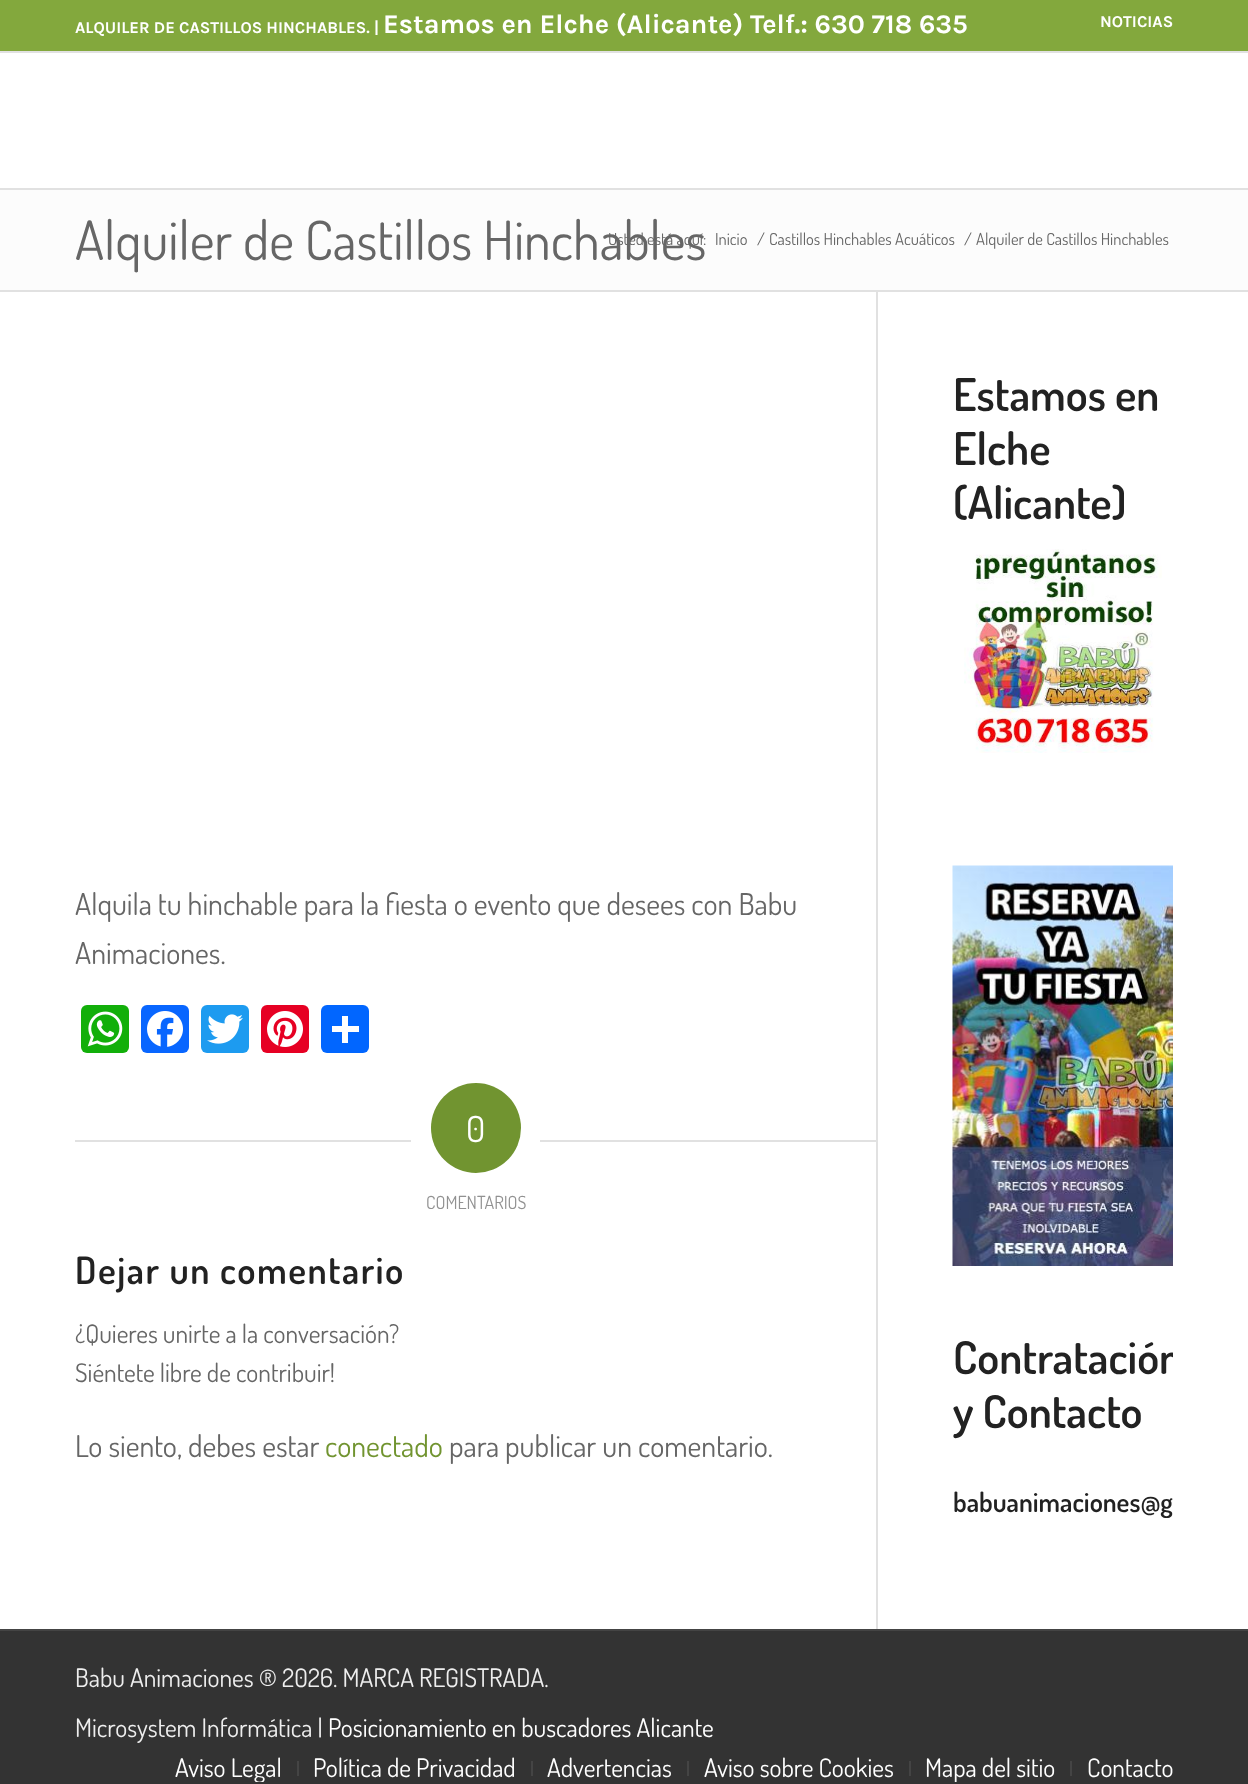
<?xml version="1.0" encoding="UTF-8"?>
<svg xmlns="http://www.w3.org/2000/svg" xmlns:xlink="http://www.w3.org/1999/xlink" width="1248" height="1784">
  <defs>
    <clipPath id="clip1"><rect x="878" y="291" width="295" height="1340" /></clipPath>
    <clipPath id="clip2"><rect x="150" y="1752" width="1023" height="30" /></clipPath>
  </defs>
  <rect width="100%" height="100%" fill="#ffffff" />
  <rect width="1248" height="51" fill="#83a83d" />
  <rect y="51" width="1248" height="2" fill="#e1e1e1" />
  <rect y="188" width="1248" height="2" fill="#e1e1e1" />
  <rect y="190" width="1248" height="100" fill="#fcfcfc" />
  <rect y="290" width="1248" height="2" fill="#e1e1e1" />
  <rect x="81" y="1005" width="48" height="48" rx="6" fill="#12af0a" />
  <image x="87" y="1011" width="36" height="36" xlink:href="image1.png" />
  <rect x="141" y="1005" width="48" height="48" rx="6" fill="#0866ff" />
  <image x="147" y="1011" width="36" height="36" xlink:href="image2.png" />
  <rect x="201" y="1005" width="48" height="48" rx="6" fill="#1d9bf0" />
  <image x="207" y="1014" width="36" height="30" xlink:href="image3.png" />
  <rect x="261" y="1005" width="48" height="48" rx="6" fill="#e60023" />
  <image x="267" y="1011" width="36" height="36" xlink:href="image4.png" />
  <rect x="321" y="1005" width="48" height="48" rx="6" fill="#0166ff" />
  <rect x="342" y="1016" width="6" height="27" fill="#ffffff" />
  <rect x="332" y="1026" width="27" height="6" fill="#ffffff" />
  <rect x="75" y="1140" width="336" height="2" fill="#e1e1e1" />
  <circle cx="476" cy="1128" r="45" fill="#719430" />
  <rect x="540" y="1140" width="336" height="2" fill="#e1e1e1" />
  <rect x="876" y="291" width="2" height="1340" fill="#e1e1e1" />
  <image x="964" y="549" width="198" height="204" xlink:href="image5.png" />
  <image x="952" y="865" width="221" height="401" xlink:href="image6.png" />
  <rect y="1631" width="1248" height="153" fill="#333333" />
  <rect y="1629" width="1248" height="2" fill="#444444" />
  <rect x="297" y="1761" width="2" height="15" fill="#444444" />
  <rect x="531" y="1761" width="2" height="15" fill="#444444" />
  <rect x="687" y="1761" width="2" height="15" fill="#444444" />
  <rect x="909" y="1761" width="2" height="15" fill="#444444" />
  <rect x="1070" y="1761" width="2" height="15" fill="#444444" />
  <text x="75" y="33" style="font-family: Karla; font-size: 16.5px; font-weight: bold; fill: #ffffff">ALQUILER DE CASTILLOS HINCHABLES. |</text>
  <text x="383" y="33" style="font-family: Karla; font-size: 27px; font-weight: bold; fill: #ffffff">Estamos en Elche (Alicante) Telf.: 630 718 635</text>
  <text x="1100" y="27" style="font-family: Karla; font-size: 16.5px; font-weight: bold; fill: #ffffff">NOTICIAS</text>
  <text x="75" y="260" style="font-family: Dosis; font-size: 54px; fill: #666666">Alquiler de Castillos Hinchables</text>
  <text x="608" y="245" style="font-family: Dosis; font-size: 16.5px; fill: #666666">Usted está aquí:</text>
  <text x="715" y="245" style="font-family: Dosis; font-size: 16.5px; fill: #666666">Inicio</text>
  <text x="757" y="245" style="font-family: Dosis; font-size: 16.5px; fill: #666666">/</text>
  <text x="769" y="245" style="font-family: Dosis; font-size: 16.5px; fill: #666666">Castillos Hinchables Acuáticos</text>
  <text x="964" y="245" style="font-family: Dosis; font-size: 16.5px; fill: #666666">/</text>
  <text x="976" y="245" style="font-family: Dosis; font-size: 16.5px; fill: #666666">Alquiler de Castillos Hinchables</text>
  <text x="75" y="915" style="font-family: Dosis; font-size: 30px; fill: #666666">Alquila tu hinchable para la fiesta o evento que desees con Babu</text>
  <text x="75" y="964" style="font-family: Dosis; font-size: 30px; fill: #666666">Animaciones.</text>
  <text x="466" y="1142" style="font-family: Dosis; font-size: 36px; fill: #ffffff">0</text>
  <text x="426" y="1209" style="font-family: Dosis; font-size: 18px; fill: #919191">COMENTARIOS</text>
  <text x="75" y="1284" style="font-family: Dosis; font-size: 37.5px; font-weight: 600; letter-spacing: 1.5px; fill: #222222">Dejar un comentario</text>
  <text x="75" y="1343" style="font-family: Dosis; font-size: 25.5px; fill: #666666">¿Quieres unirte a la conversación?</text>
  <text x="75" y="1382" style="font-family: Dosis; font-size: 25.5px; fill: #666666">Siéntete libre de contribuir!</text>
  <text x="75" y="1457" style="font-family: Dosis; font-size: 30px; fill: #666666">Lo siento, debes estar</text>
  <text x="325" y="1457" style="font-family: Dosis; font-size: 30px; fill: #719430">conectado</text>
  <text x="449" y="1457" style="font-family: Dosis; font-size: 30px; fill: #666666">para publicar un comentario.</text>
  <text x="953" y="411" style="font-family: Dosis; font-size: 45px; font-weight: 600; fill: #222222">Estamos en</text>
  <text x="953" y="465" style="font-family: Dosis; font-size: 45px; font-weight: 600; fill: #222222">Elche</text>
  <text x="953" y="519" style="font-family: Dosis; font-size: 45px; font-weight: 600; fill: #222222">(Alicante)</text>
  <g clip-path="url(#clip1)">
    <text x="953" y="1374" style="font-family: Dosis; font-size: 45px; font-weight: 600; fill: #222222">Contratación</text>
  </g>
  <text x="953" y="1428" style="font-family: Dosis; font-size: 45px; font-weight: 600; fill: #222222">y Contacto</text>
  <text x="953" y="1512" style="font-family: Dosis; font-size: 27px; font-weight: 600; fill: #222222">babuanimaciones@g</text>
  <text x="75" y="1687" style="font-family: Dosis; font-size: 25.5px; fill: #eeeeee">Babu Animaciones ® 2026. MARCA REGISTRADA.</text>
  <text x="75" y="1737" style="font-family: Dosis; font-size: 25.5px; fill: #eeeeee">Microsystem Informática |</text>
  <text x="328" y="1737" style="font-family: Dosis; font-size: 25.5px; fill: #ffffff">Posicionamiento en buscadores Alicante</text>
  <g clip-path="url(#clip2)">
    <text x="175" y="1777" style="font-family: Dosis; font-size: 25.5px; fill: #ffffff">Aviso Legal</text>
  </g>
  <text x="313" y="1777" style="font-family: Dosis; font-size: 25.5px; fill: #ffffff">Política de Privacidad</text>
  <text x="547" y="1777" style="font-family: Dosis; font-size: 25.5px; fill: #ffffff">Advertencias</text>
  <text x="704" y="1777" style="font-family: Dosis; font-size: 25.5px; fill: #ffffff">Aviso sobre Cookies</text>
  <g clip-path="url(#clip2)">
    <text x="925" y="1777" style="font-family: Dosis; font-size: 25.5px; fill: #ffffff">Mapa del sitio</text>
  </g>
  <text x="1087" y="1777" style="font-family: Dosis; font-size: 25.5px; fill: #ffffff">Contacto</text>
</svg>
